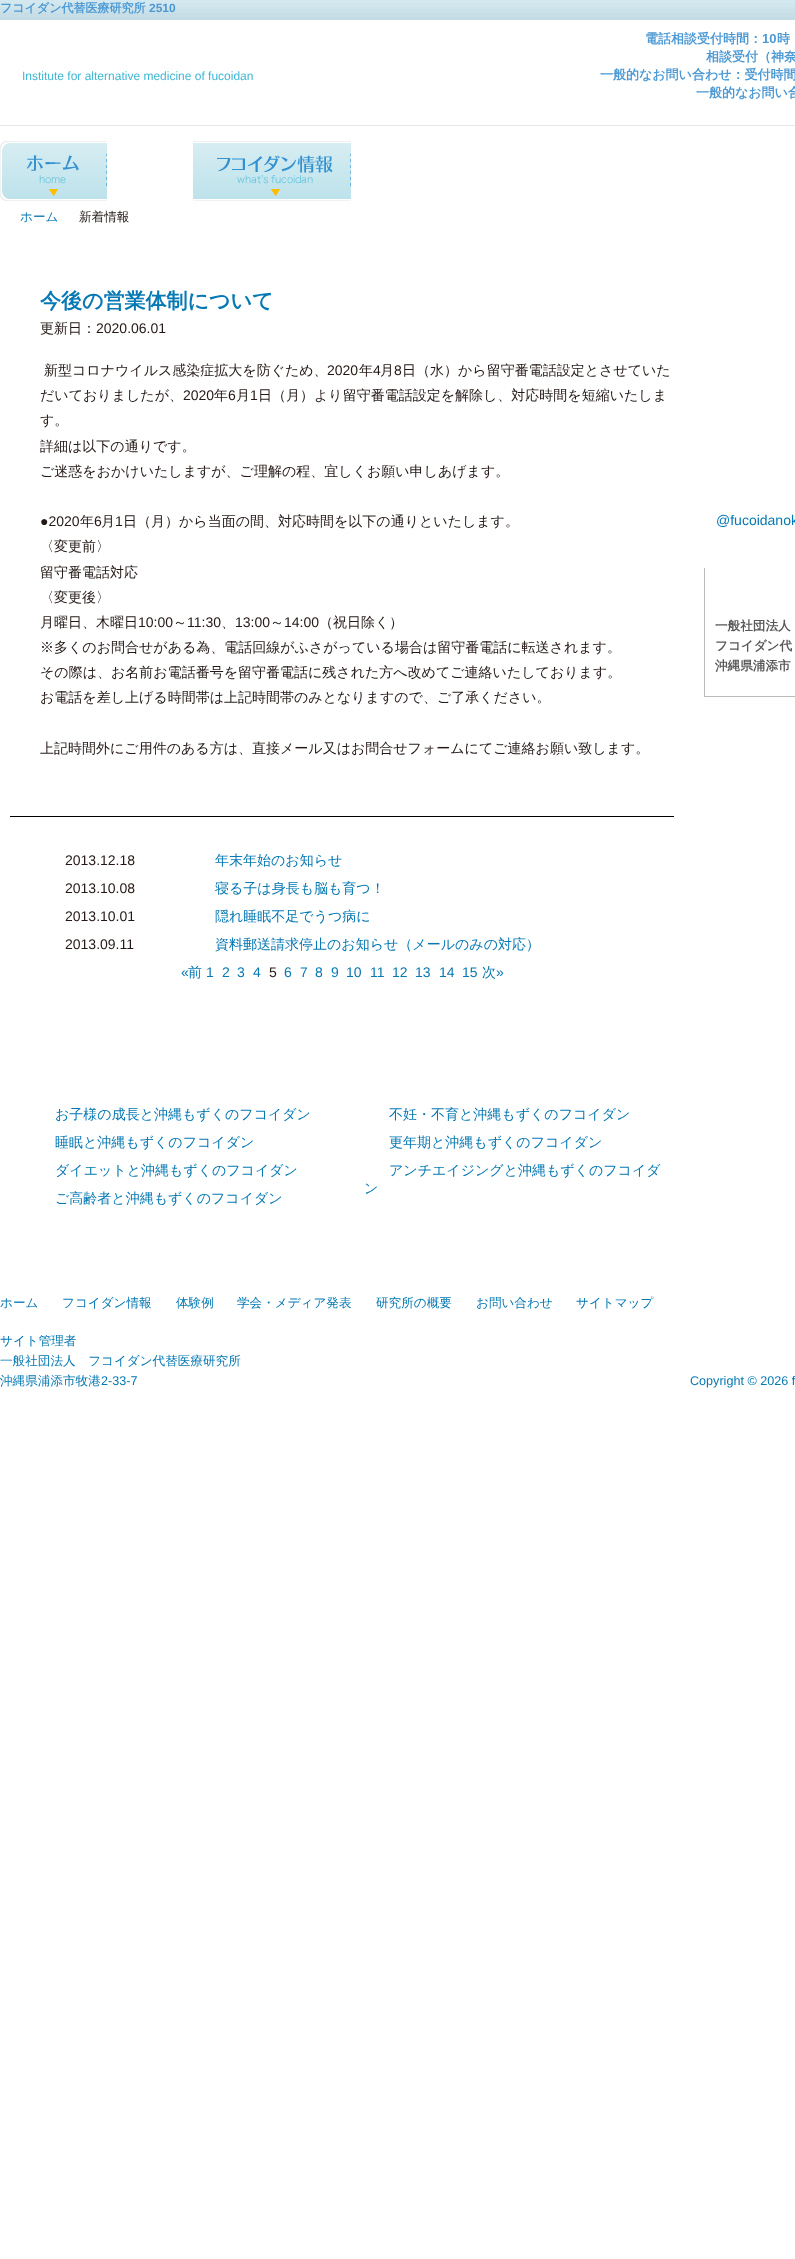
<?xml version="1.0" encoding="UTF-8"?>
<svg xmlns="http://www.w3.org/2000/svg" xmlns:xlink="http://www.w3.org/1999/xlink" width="795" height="2259">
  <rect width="100%" height="100%" fill="#ffffff" />
  <rect y="125" width="795" height="1" fill="#e7e7e8" />
  <image x="0" y="0" width="795" height="20" xlink:href="image1.png" />
  <image x="0" y="141" width="107" height="60" xlink:href="image2.png" />
  <image x="193" y="141" width="158" height="60" xlink:href="image3.png" />
  <rect x="10" y="816" width="664" height="1" fill="#000000" />
  <rect x="704" y="696" width="91" height="1" fill="#bbbbba" />
  <rect x="704" y="568" width="1" height="129" fill="#bbbbba" />
  <text x="0" y="12" style="font-family: WenQuanYi Zen Hei; font-size: 12px; font-weight: bold; fill: #4d99d4">フコイダン代替医療研究所</text>
  <text x="149" y="12" style="font-family: Liberation Sans; font-size: 12px; font-weight: bold; fill: #4d99d4">2510</text>
  <text x="22" y="80" style="font-family: Liberation Sans; font-size: 12px; fill: #41b8d4">Institute for alternative medicine of fucoidan</text>
  <text x="645" y="43" style="font-family: WenQuanYi Zen Hei; font-size: 13px; font-weight: bold; fill: #4d99d4">電話相談受付時間：</text>
  <text x="762" y="43" style="font-family: Liberation Sans; font-size: 13px; font-weight: bold; fill: #4d99d4">10</text>
  <text x="777" y="43" style="font-family: WenQuanYi Zen Hei; font-size: 13px; font-weight: bold; fill: #4d99d4">時</text>
  <text x="706" y="61" style="font-family: WenQuanYi Zen Hei; font-size: 13px; font-weight: bold; fill: #4d99d4">相談受付（神奈</text>
  <text x="600" y="79" style="font-family: WenQuanYi Zen Hei; font-size: 13px; font-weight: bold; fill: #4d99d4">一般的なお問い合わせ：受付時間</text>
  <text x="696" y="97" style="font-family: WenQuanYi Zen Hei; font-size: 13px; font-weight: bold; fill: #4d99d4">一般的なお問い合</text>
  <text x="20" y="221" style="font-family: WenQuanYi Zen Hei; font-size: 12.6px; font-weight: 500; fill: #0678b3">ホーム</text>
  <text x="79" y="221" style="font-family: WenQuanYi Zen Hei; font-size: 12.6px; font-weight: 500; fill: #231815">新着情報</text>
  <text x="40" y="308" style="font-family: WenQuanYi Zen Hei; font-size: 21px; font-weight: bold; fill: #0678b3">今後の営業体制について</text>
  <text x="40" y="333" style="font-family: WenQuanYi Zen Hei; font-size: 14px; font-weight: 500; fill: #231815">更新日：</text>
  <text x="96" y="333" style="font-family: Liberation Sans; font-size: 14px; fill: #231815">2020.06.01</text>
  <text x="44" y="375" style="font-family: WenQuanYi Zen Hei; font-size: 14px; font-weight: 500; fill: #231815">新型コロナウイルス感染症拡大を防ぐため、</text>
  <text x="327" y="375" style="font-family: Liberation Sans; font-size: 14px; fill: #231815">2020</text>
  <text x="359" y="375" style="font-family: WenQuanYi Zen Hei; font-size: 14px; font-weight: 500; fill: #231815">年</text>
  <text x="373" y="375" style="font-family: Liberation Sans; font-size: 14px; fill: #231815">4</text>
  <text x="380" y="375" style="font-family: WenQuanYi Zen Hei; font-size: 14px; font-weight: 500; fill: #231815">月</text>
  <text x="394" y="375" style="font-family: Liberation Sans; font-size: 14px; fill: #231815">8</text>
  <text x="402" y="375" style="font-family: WenQuanYi Zen Hei; font-size: 14px; font-weight: 500; fill: #231815">日（水）から留守番電話設定とさせていた</text>
  <text x="40" y="400" style="font-family: WenQuanYi Zen Hei; font-size: 14px; font-weight: 500; fill: #231815">だいておりましたが、</text>
  <text x="183" y="400" style="font-family: Liberation Sans; font-size: 14px; fill: #231815">2020</text>
  <text x="214" y="400" style="font-family: WenQuanYi Zen Hei; font-size: 14px; font-weight: 500; fill: #231815">年</text>
  <text x="228" y="400" style="font-family: Liberation Sans; font-size: 14px; fill: #231815">6</text>
  <text x="236" y="400" style="font-family: WenQuanYi Zen Hei; font-size: 14px; font-weight: 500; fill: #231815">月</text>
  <text x="250" y="400" style="font-family: Liberation Sans; font-size: 14px; fill: #231815">1</text>
  <text x="258" y="400" style="font-family: WenQuanYi Zen Hei; font-size: 14px; font-weight: 500; fill: #231815">日（月）より留守番電話設定を解除し、対応時間を短縮いたしま</text>
  <text x="40" y="425" style="font-family: WenQuanYi Zen Hei; font-size: 14px; font-weight: 500; fill: #231815">す。</text>
  <text x="40" y="451" style="font-family: WenQuanYi Zen Hei; font-size: 14px; font-weight: 500; fill: #231815">詳細は以下の通りです。</text>
  <text x="40" y="476" style="font-family: WenQuanYi Zen Hei; font-size: 14px; font-weight: 500; fill: #231815">ご迷惑をおかけいたしますが、ご理解の程、宜しくお願い申しあげます。</text>
  <text x="40" y="526" style="font-family: Liberation Sans; font-size: 14px; fill: #231815">●2020</text>
  <text x="80" y="526" style="font-family: WenQuanYi Zen Hei; font-size: 14px; font-weight: 500; fill: #231815">年</text>
  <text x="94" y="526" style="font-family: Liberation Sans; font-size: 14px; fill: #231815">6</text>
  <text x="101" y="526" style="font-family: WenQuanYi Zen Hei; font-size: 14px; font-weight: 500; fill: #231815">月</text>
  <text x="115" y="526" style="font-family: Liberation Sans; font-size: 14px; fill: #231815">1</text>
  <text x="123" y="526" style="font-family: WenQuanYi Zen Hei; font-size: 14px; font-weight: 500; fill: #231815">日（月）から当面の間、対応時間を以下の通りといたします。</text>
  <text x="40" y="551" style="font-family: WenQuanYi Zen Hei; font-size: 14px; font-weight: 500; fill: #231815">〈変更前〉</text>
  <text x="40" y="577" style="font-family: WenQuanYi Zen Hei; font-size: 14px; font-weight: 500; fill: #231815">留守番電話対応</text>
  <text x="40" y="602" style="font-family: WenQuanYi Zen Hei; font-size: 14px; font-weight: 500; fill: #231815">〈変更後〉</text>
  <text x="40" y="627" style="font-family: WenQuanYi Zen Hei; font-size: 14px; font-weight: 500; fill: #231815">月曜日、木曜日</text>
  <text x="138" y="627" style="font-family: Liberation Sans; font-size: 14px; fill: #231815">10:00</text>
  <text x="173" y="627" style="font-family: WenQuanYi Zen Hei; font-size: 14px; font-weight: 500; fill: #231815">～</text>
  <text x="187" y="627" style="font-family: Liberation Sans; font-size: 14px; fill: #231815">11:30</text>
  <text x="235" y="627" style="font-family: Liberation Sans; font-size: 14px; fill: #231815">13:00</text>
  <text x="270" y="627" style="font-family: WenQuanYi Zen Hei; font-size: 14px; font-weight: 500; fill: #231815">～</text>
  <text x="284" y="627" style="font-family: Liberation Sans; font-size: 14px; fill: #231815">14:00</text>
  <text x="319" y="627" style="font-family: WenQuanYi Zen Hei; font-size: 14px; font-weight: 500; fill: #231815">（祝日除く）</text>
  <text x="221" y="627" style="font-family: WenQuanYi Zen Hei; font-size: 14px; font-weight: 500; fill: #231815">、</text>
  <text x="40" y="652" style="font-family: WenQuanYi Zen Hei; font-size: 14px; font-weight: 500; fill: #231815">※多くのお問合せがある為、電話回線がふさがっている場合は留守番電話に転送されます。</text>
  <text x="40" y="677" style="font-family: WenQuanYi Zen Hei; font-size: 14px; font-weight: 500; fill: #231815">その際は、お名前お電話番号を留守番電話に残された方へ改めてご連絡いたしております。</text>
  <text x="40" y="702" style="font-family: WenQuanYi Zen Hei; font-size: 14px; font-weight: 500; fill: #231815">お電話を差し上げる時間帯は上記時間帯のみとなりますので、ご了承ください。</text>
  <text x="40" y="753" style="font-family: WenQuanYi Zen Hei; font-size: 14px; font-weight: 500; fill: #231815">上記時間外にご用件のある方は、直接メール又はお問合せフォームにてご連絡お願い致します。</text>
  <text x="65" y="865" style="font-family: Liberation Sans; font-size: 14px; fill: #231815">2013.12.18</text>
  <text x="215" y="865" style="font-family: WenQuanYi Zen Hei; font-size: 14px; font-weight: 500; fill: #0678b3">年末年始のお知らせ</text>
  <text x="65" y="893" style="font-family: Liberation Sans; font-size: 14px; fill: #231815">2013.10.08</text>
  <text x="215" y="893" style="font-family: WenQuanYi Zen Hei; font-size: 14px; font-weight: 500; fill: #0678b3">寝る子は身長も脳も育つ！</text>
  <text x="65" y="921" style="font-family: Liberation Sans; font-size: 14px; fill: #231815">2013.10.01</text>
  <text x="215" y="921" style="font-family: WenQuanYi Zen Hei; font-size: 14px; font-weight: 500; fill: #0678b3">隠れ睡眠不足でうつ病に</text>
  <text x="65" y="949" style="font-family: Liberation Sans; font-size: 14px; fill: #231815">2013.09.11</text>
  <text x="215" y="949" style="font-family: WenQuanYi Zen Hei; font-size: 14px; font-weight: 500; fill: #0678b3">資料郵送請求停止のお知らせ（メールのみの対応）</text>
  <text x="181" y="977" style="font-family: Liberation Sans; font-size: 14px; fill: #0678b3">«</text>
  <text x="188" y="977" style="font-family: WenQuanYi Zen Hei; font-size: 14px; font-weight: 500; fill: #0678b3">前</text>
  <text x="206" y="977" style="font-family: Liberation Sans; font-size: 14px; fill: #0678b3">1</text>
  <text x="222" y="977" style="font-family: Liberation Sans; font-size: 14px; fill: #0678b3">2</text>
  <text x="237" y="977" style="font-family: Liberation Sans; font-size: 14px; fill: #0678b3">3</text>
  <text x="253" y="977" style="font-family: Liberation Sans; font-size: 14px; fill: #0678b3">4</text>
  <text x="269" y="977" style="font-family: Liberation Sans; font-size: 14px; fill: #231815">5</text>
  <text x="284" y="977" style="font-family: Liberation Sans; font-size: 14px; fill: #0678b3">6</text>
  <text x="300" y="977" style="font-family: Liberation Sans; font-size: 14px; fill: #0678b3">7</text>
  <text x="315" y="977" style="font-family: Liberation Sans; font-size: 14px; fill: #0678b3">8</text>
  <text x="331" y="977" style="font-family: Liberation Sans; font-size: 14px; fill: #0678b3">9</text>
  <text x="346" y="977" style="font-family: Liberation Sans; font-size: 14px; fill: #0678b3">10</text>
  <text x="370" y="977" style="font-family: Liberation Sans; font-size: 14px; fill: #0678b3">11</text>
  <text x="392" y="977" style="font-family: Liberation Sans; font-size: 14px; fill: #0678b3">12</text>
  <text x="415" y="977" style="font-family: Liberation Sans; font-size: 14px; fill: #0678b3">13</text>
  <text x="439" y="977" style="font-family: Liberation Sans; font-size: 14px; fill: #0678b3">14</text>
  <text x="462" y="977" style="font-family: Liberation Sans; font-size: 14px; fill: #0678b3">15</text>
  <text x="482" y="977" style="font-family: WenQuanYi Zen Hei; font-size: 14px; font-weight: 500; fill: #0678b3">次</text>
  <text x="496" y="977" style="font-family: Liberation Sans; font-size: 14px; fill: #0678b3">»</text>
  <text x="55" y="1119" style="font-family: WenQuanYi Zen Hei; font-size: 14px; font-weight: 500; fill: #0678b3">お子様の成長と沖縄もずくのフコイダン</text>
  <text x="55" y="1147" style="font-family: WenQuanYi Zen Hei; font-size: 14px; font-weight: 500; fill: #0678b3">睡眠と沖縄もずくのフコイダン</text>
  <text x="55" y="1175" style="font-family: WenQuanYi Zen Hei; font-size: 14px; font-weight: 500; fill: #0678b3">ダイエットと沖縄もずくのフコイダン</text>
  <text x="55" y="1203" style="font-family: WenQuanYi Zen Hei; font-size: 14px; font-weight: 500; fill: #0678b3">ご高齢者と沖縄もずくのフコイダン</text>
  <text x="389" y="1119" style="font-family: WenQuanYi Zen Hei; font-size: 14px; font-weight: 500; fill: #0678b3">不妊・不育と沖縄もずくのフコイダン</text>
  <text x="389" y="1147" style="font-family: WenQuanYi Zen Hei; font-size: 14px; font-weight: 500; fill: #0678b3">更年期と沖縄もずくのフコイダン</text>
  <text x="389" y="1175" style="font-family: WenQuanYi Zen Hei; font-size: 14px; font-weight: 500; fill: #0678b3">アンチエイジングと沖縄もずくのフコイダ</text>
  <text x="364" y="1193" style="font-family: WenQuanYi Zen Hei; font-size: 14px; font-weight: 500; fill: #0678b3">ン</text>
  <text x="716" y="525" style="font-family: Liberation Sans; font-size: 14px; fill: #0678b3">@fucoidanok</text>
  <text x="715" y="630" style="font-family: WenQuanYi Zen Hei; font-size: 12.6px; font-weight: bold; fill: #595757">一般社団法人</text>
  <text x="715" y="650" style="font-family: WenQuanYi Zen Hei; font-size: 12.6px; font-weight: bold; fill: #595757">フコイダン代</text>
  <text x="715" y="670" style="font-family: WenQuanYi Zen Hei; font-size: 12.6px; font-weight: bold; fill: #595757">沖縄県浦添市</text>
  <text x="0" y="1307" style="font-family: WenQuanYi Zen Hei; font-size: 12.6px; font-weight: 500; fill: #0678b3">ホーム</text>
  <text x="62" y="1307" style="font-family: WenQuanYi Zen Hei; font-size: 12.6px; font-weight: 500; fill: #0678b3">フコイダン情報</text>
  <text x="176" y="1307" style="font-family: WenQuanYi Zen Hei; font-size: 12.6px; font-weight: 500; fill: #0678b3">体験例</text>
  <text x="237" y="1307" style="font-family: WenQuanYi Zen Hei; font-size: 12.6px; font-weight: 500; fill: #0678b3">学会・メディア発表</text>
  <text x="376" y="1307" style="font-family: WenQuanYi Zen Hei; font-size: 12.6px; font-weight: 500; fill: #0678b3">研究所の概要</text>
  <text x="476" y="1307" style="font-family: WenQuanYi Zen Hei; font-size: 12.6px; font-weight: 500; fill: #0678b3">お問い合わせ</text>
  <text x="576" y="1307" style="font-family: WenQuanYi Zen Hei; font-size: 12.6px; font-weight: 500; fill: #0678b3">サイトマップ</text>
  <text x="0" y="1345" style="font-family: WenQuanYi Zen Hei; font-size: 12.6px; font-weight: 500; fill: #0678b3">サイト管理者</text>
  <text x="0" y="1365" style="font-family: WenQuanYi Zen Hei; font-size: 12.6px; font-weight: 500; fill: #0678b3">一般社団法人　フコイダン代替医療研究所</text>
  <text x="0" y="1385" style="font-family: WenQuanYi Zen Hei; font-size: 12.6px; font-weight: 500; fill: #0678b3">沖縄県浦添市牧港</text>
  <text x="101" y="1385" style="font-family: Liberation Sans; font-size: 12.6px; fill: #0678b3">2-33-7</text>
  <text x="690" y="1385" style="font-family: Liberation Sans; font-size: 12.6px; fill: #0678b3">Copyright © 2026 f</text>
</svg>
